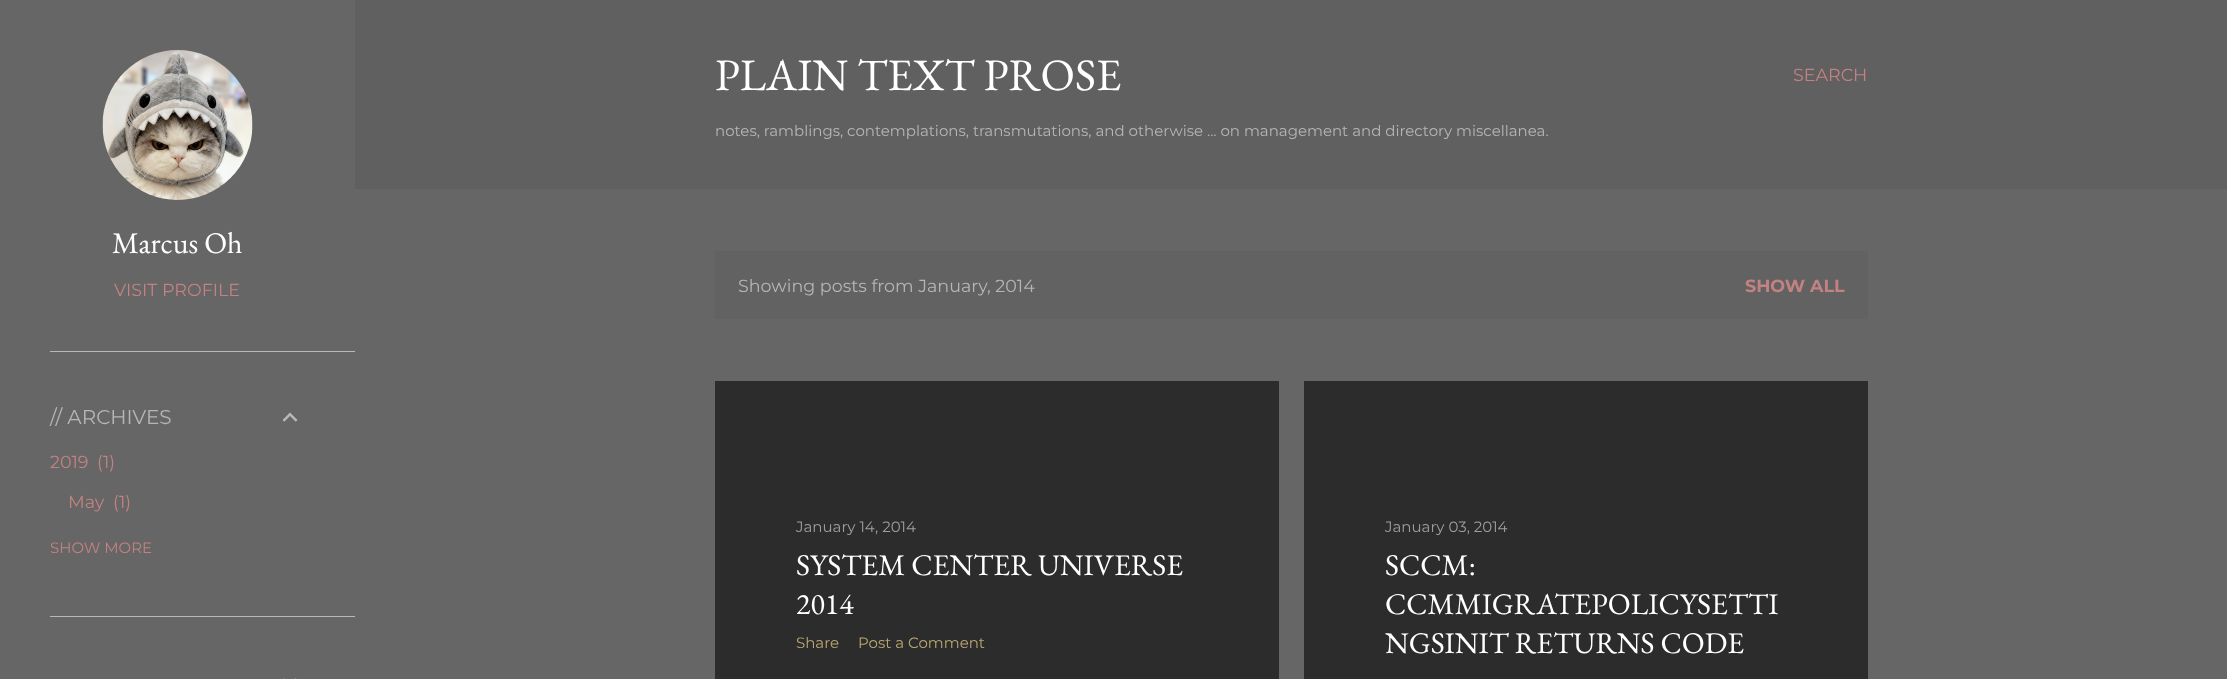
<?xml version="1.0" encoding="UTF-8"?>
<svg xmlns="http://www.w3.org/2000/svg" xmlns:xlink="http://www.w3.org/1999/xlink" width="2227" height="679">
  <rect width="100%" height="100%" fill="#666666" />
  <image x="102" y="50" width="151" height="150" xlink:href="image1.png" />
  <rect x="50" y="351" width="305" height="1" fill="#b8b8b8" />
  <image x="282" y="412" width="16" height="10" xlink:href="image2.png" />
  <rect x="50" y="616" width="305" height="1" fill="#b8b8b8" />
  <image x="283" y="678" width="14" height="1" xlink:href="image3.png" />
  <rect x="355" width="1872" height="189" fill="#606060" />
  <rect x="715" y="251" width="1153" height="68" fill="#626262" />
  <rect x="715" y="381" width="564" height="298" fill="#2c2c2c" />
  <rect x="1304" y="381" width="564" height="298" fill="#2c2c2c" />
  <text x="112" y="253" style="font-family: EB Garamond; font-size: 30px; fill: #ffffff">Marcus Oh</text>
  <text x="114" y="296" style="font-family: Montserrat; font-size: 17.5px; fill: #c38282">VISIT PROFILE</text>
  <text x="50" y="424" style="font-family: Montserrat; font-size: 20px; fill: #b6b6b6">// ARCHIVES</text>
  <text x="50" y="468" style="font-family: Montserrat; font-size: 17.5px; fill: #c38282">2019</text>
  <text x="97" y="468" style="font-family: Montserrat; font-size: 17.5px; fill: #c38282">(1)</text>
  <text x="68" y="508" style="font-family: Montserrat; font-size: 17.5px; fill: #c38282">May</text>
  <text x="113" y="508" style="font-family: Montserrat; font-size: 17.5px; fill: #c38282">(1)</text>
  <text x="50" y="553" style="font-family: Montserrat; font-size: 15px; fill: #c38282">SHOW MORE</text>
  <text x="715" y="90" style="font-family: EB Garamond; font-size: 45px; fill: #ffffff">PLAIN TEXT PROSE</text>
  <text x="715" y="136" style="font-family: Montserrat; font-size: 15px; fill: #b6b6b6">notes, ramblings, contemplations, transmutations, and otherwise ... on management and directory miscellanea.</text>
  <text x="1793" y="81" style="font-family: Montserrat; font-size: 17.5px; fill: #c38282">SEARCH</text>
  <text x="738" y="292" style="font-family: Montserrat; font-size: 17.5px; fill: #b6b6b6">Showing posts from January, 2014</text>
  <text x="1745" y="292" style="font-family: Montserrat; font-size: 17.5px; font-weight: bold; fill: #c38282">SHOW ALL</text>
  <text x="796" y="532" style="font-family: Montserrat; font-size: 15px; fill: #9e9e9e">January 14, 2014</text>
  <text x="796" y="575" style="font-family: EB Garamond; font-size: 30px; fill: #ffffff">SYSTEM CENTER UNIVERSE</text>
  <text x="796" y="614" style="font-family: EB Garamond; font-size: 30px; fill: #ffffff">2014</text>
  <text x="796" y="648" style="font-family: Montserrat; font-size: 15px; fill: #bca772">Share</text>
  <text x="858" y="648" style="font-family: Montserrat; font-size: 15px; fill: #bca772">Post a Comment</text>
  <text x="1385" y="532" style="font-family: Montserrat; font-size: 15px; fill: #9e9e9e">January 03, 2014</text>
  <text x="1385" y="575" style="font-family: EB Garamond; font-size: 30px; fill: #ffffff">SCCM:</text>
  <text x="1385" y="614" style="font-family: EB Garamond; font-size: 30px; fill: #ffffff">CCMMIGRATEPOLICYSETTI</text>
  <text x="1385" y="653" style="font-family: EB Garamond; font-size: 30px; fill: #ffffff">NGSINIT RETURNS CODE</text>
</svg>
